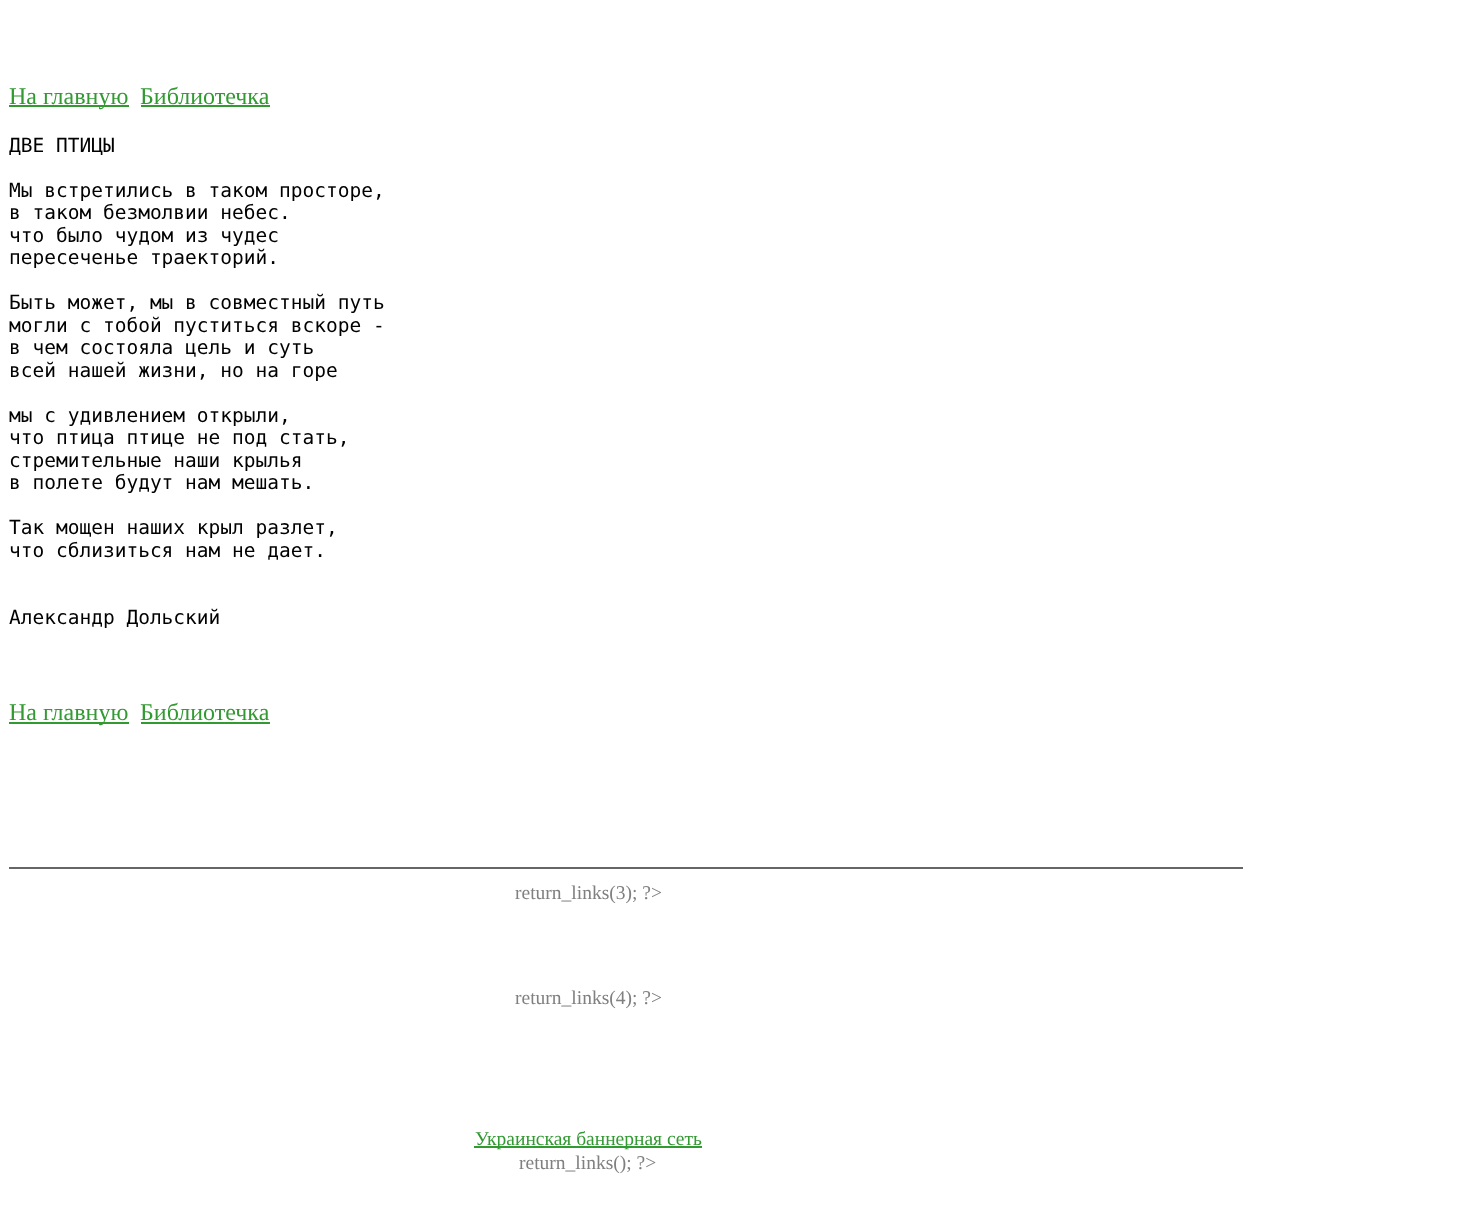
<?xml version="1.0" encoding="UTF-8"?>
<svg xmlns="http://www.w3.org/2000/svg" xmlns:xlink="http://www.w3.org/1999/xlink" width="1465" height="1217">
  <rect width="100%" height="100%" fill="#ffffff" />
  <rect x="9" y="105" width="120" height="2" fill="#339933" />
  <rect x="141" y="105" width="129" height="2" fill="#339933" />
  <rect x="9" y="722" width="120" height="2" fill="#339933" />
  <rect x="141" y="722" width="129" height="2" fill="#339933" />
  <rect x="9" y="867" width="1234" height="2" fill="#666666" />
  <rect x="474" y="1146" width="228" height="2" fill="#339933" />
  <text x="9" y="104" style="font-family: Liberation Serif; font-size: 24px; fill: #339933">На главную</text>
  <text x="140" y="104" style="font-family: Liberation Serif; font-size: 24px; fill: #339933">Библиотечка</text>
  <text x="9" y="152" style="font-family: DejaVu Sans Mono; font-size: 19.5px; fill: #000000">ДВЕ ПТИЦЫ</text>
  <text x="9" y="197" style="font-family: DejaVu Sans Mono; font-size: 19.5px; fill: #000000">Мы встретились в таком просторе,</text>
  <text x="9" y="219" style="font-family: DejaVu Sans Mono; font-size: 19.5px; fill: #000000">в таком безмолвии небес.</text>
  <text x="9" y="242" style="font-family: DejaVu Sans Mono; font-size: 19.5px; fill: #000000">что было чудом из чудес</text>
  <text x="9" y="264" style="font-family: DejaVu Sans Mono; font-size: 19.5px; fill: #000000">пересеченье траекторий.</text>
  <text x="9" y="309" style="font-family: DejaVu Sans Mono; font-size: 19.5px; fill: #000000">Быть может, мы в совместный путь</text>
  <text x="9" y="332" style="font-family: DejaVu Sans Mono; font-size: 19.5px; fill: #000000">могли с тобой пуститься вскоре -</text>
  <text x="9" y="354" style="font-family: DejaVu Sans Mono; font-size: 19.5px; fill: #000000">в чем состояла цель и суть</text>
  <text x="9" y="377" style="font-family: DejaVu Sans Mono; font-size: 19.5px; fill: #000000">всей нашей жизни, но на горе</text>
  <text x="9" y="422" style="font-family: DejaVu Sans Mono; font-size: 19.5px; fill: #000000">мы с удивлением открыли,</text>
  <text x="9" y="444" style="font-family: DejaVu Sans Mono; font-size: 19.5px; fill: #000000">что птица птице не под стать,</text>
  <text x="9" y="467" style="font-family: DejaVu Sans Mono; font-size: 19.5px; fill: #000000">стремительные наши крылья</text>
  <text x="9" y="489" style="font-family: DejaVu Sans Mono; font-size: 19.5px; fill: #000000">в полете будут нам мешать.</text>
  <text x="9" y="534" style="font-family: DejaVu Sans Mono; font-size: 19.5px; fill: #000000">Так мощен наших крыл разлет,</text>
  <text x="9" y="557" style="font-family: DejaVu Sans Mono; font-size: 19.5px; fill: #000000">что сблизиться нам не дает.</text>
  <text x="9" y="624" style="font-family: DejaVu Sans Mono; font-size: 19.5px; fill: #000000">Александр Дольский</text>
  <text x="9" y="720" style="font-family: Liberation Serif; font-size: 24px; fill: #339933">На главную</text>
  <text x="140" y="720" style="font-family: Liberation Serif; font-size: 24px; fill: #339933">Библиотечка</text>
  <text x="515" y="899" style="font-family: Liberation Serif; font-size: 19.5px; fill: #808080">return_links(3); ?&gt;</text>
  <text x="515" y="1004" style="font-family: Liberation Serif; font-size: 19.5px; fill: #808080">return_links(4); ?&gt;</text>
  <text x="475" y="1145" style="font-family: Liberation Serif; font-size: 19.5px; fill: #339933">Украинская баннерная сеть</text>
  <text x="519" y="1169" style="font-family: Liberation Serif; font-size: 19.5px; fill: #808080">return_links(); ?&gt;</text>
</svg>
